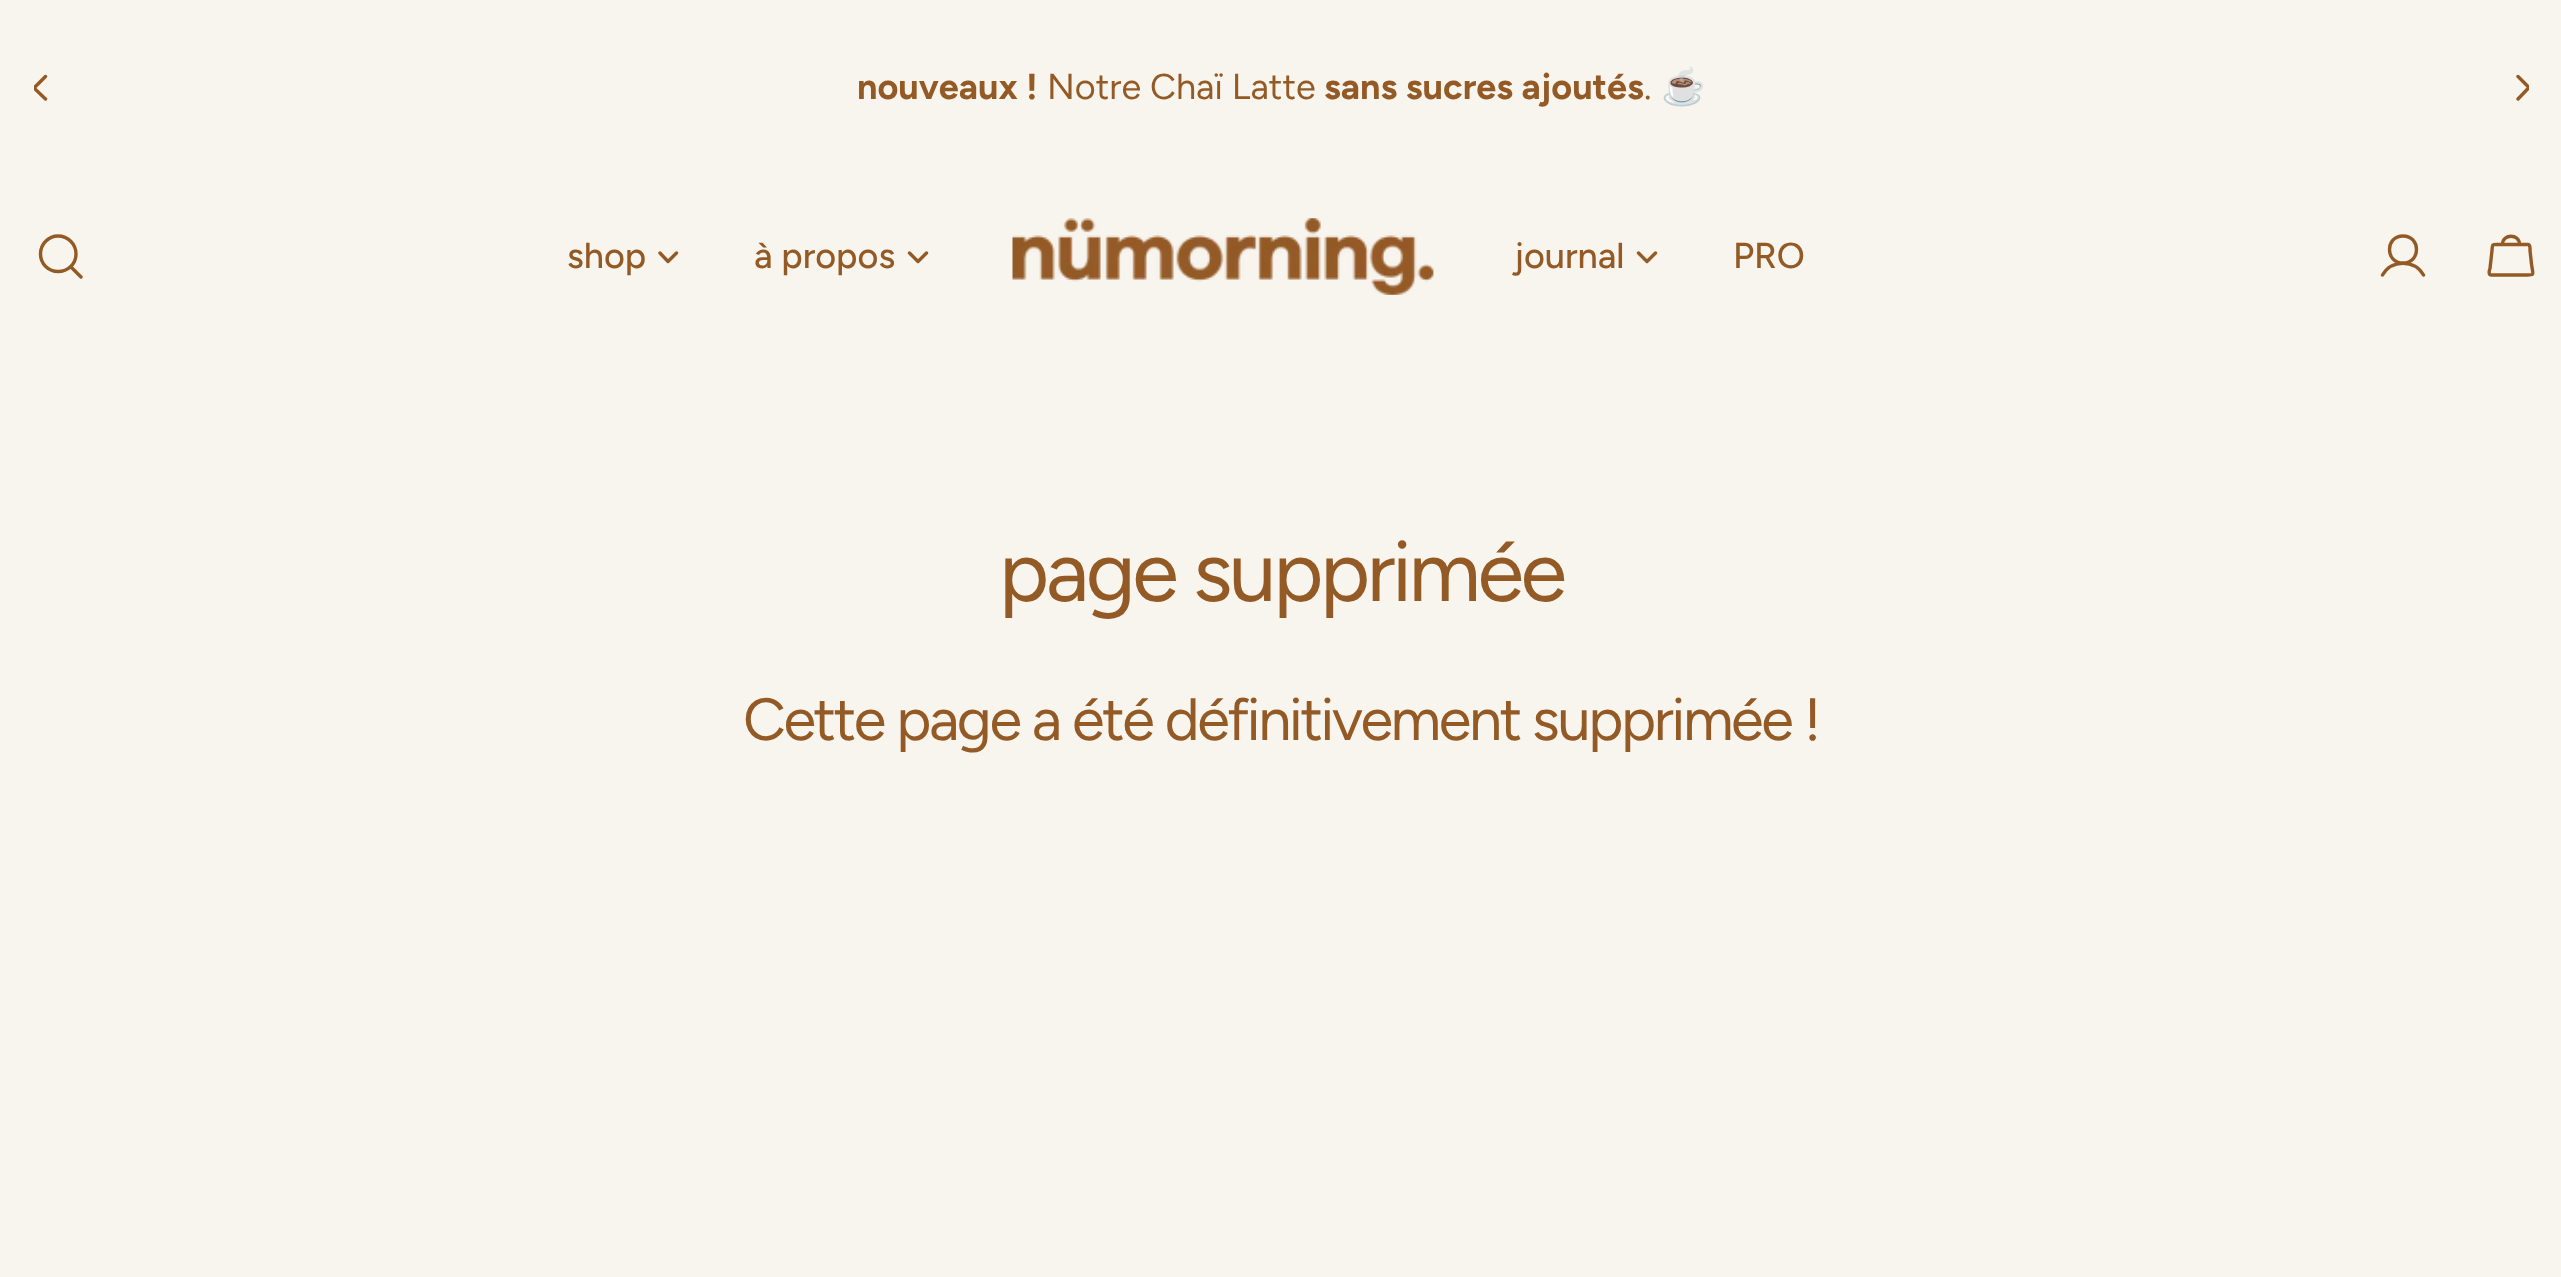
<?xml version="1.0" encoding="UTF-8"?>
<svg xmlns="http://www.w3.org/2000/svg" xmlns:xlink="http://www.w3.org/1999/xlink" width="2561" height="1277">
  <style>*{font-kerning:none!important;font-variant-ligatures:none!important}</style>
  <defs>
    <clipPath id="clip1"><rect x="34" y="70" width="25" height="36" /></clipPath>
    <clipPath id="clip2"><rect x="2504" y="70" width="25" height="36" /></clipPath>
  </defs>
  <rect width="100%" height="100%" fill="#f8f5ef" />
  <g clip-path="url(#clip1)">
    <path d="M 45.5 99 l -11.5 -11 l 11.5 -11.5" fill="none" stroke="#945a26" stroke-width="3.4" stroke-linecap="round" stroke-linejoin="round" />
  </g>
  <g clip-path="url(#clip2)">
    <path d="M 2518 76.5 l 11 11 l -11 11.5" fill="none" stroke="#945a26" stroke-width="3.4" stroke-linecap="round" stroke-linejoin="round" />
  </g>
  <path d="M 58 271.5 c 10 0 18 -7.5 18 -17.5 c 0 -10 -8 -18 -18 -18 c -9.5 0 -17.5 8 -17.5 18 c 0 10 8 17.5 17.5 17.5 z m 12.5 -5 l 10.5 10.5" fill="none" stroke="#945a26" stroke-width="3.4" stroke-linecap="round" stroke-linejoin="round" />
  <path d="M 676.5 253 l -8.5 8.5 l -8 -8.5" fill="none" stroke="#945a26" stroke-width="3.4" stroke-linecap="round" stroke-linejoin="round" />
  <path d="M 926.5 253 l -8.5 8.5 l -8.5 -8.5" fill="none" stroke="#945a26" stroke-width="3.4" stroke-linecap="round" stroke-linejoin="round" />
  <image x="1012" y="218" width="422" height="77" xlink:href="image1.png" />
  <path d="M 1655.5 253 l -8.5 8.5 l -8.5 -8.5" fill="none" stroke="#945a26" stroke-width="3.4" stroke-linecap="round" stroke-linejoin="round" />
  <path d="M 2403 263 c 18 0 18 -27 0 -27 c -18 0 -18 27 0 27 z m -20.5 12 c 9 -15.5 32 -15.5 41 0" fill="none" stroke="#945a26" stroke-width="3.4" stroke-linecap="round" stroke-linejoin="round" />
  <path d="M 2528 244.5 h -28.5 c -7.5 0 -7 -1 -7.5 6 l -2 18 c -0.5 1 -2 6.5 1 6.5 h 33.5 c 11 0 8.5 1 7 -11 l -1.5 -13.5 c 0 -0.5 0.5 -6 -2 -6 z m -25.5 0 c 0 -11 17 -11 17 0" fill="none" stroke="#945a26" stroke-width="3.4" stroke-linecap="round" stroke-linejoin="round" />
  <text x="857" y="99" style="font-family: Figtree; font-size: 36px; font-weight: bold; fill: #945a26">nouveaux !</text>
  <text x="1047" y="99" style="font-family: Figtree; font-size: 36px; fill: #945a26">Notre Chaï Latte</text>
  <text x="1324" y="99" style="font-family: Figtree; font-size: 36px; font-weight: bold; fill: #945a26">sans sucres ajoutés</text>
  <text x="1644" y="99" style="font-family: Figtree; font-size: 36px; fill: #945a26">.</text>
  <text x="1661" y="99" style="font-family: Noto Color Emoji; font-size: 36px; fill: #945a26">☕</text>
  <text x="567" y="268" style="font-family: Figtree; font-size: 36px; font-weight: 500; fill: #945a26">shop</text>
  <text x="754" y="268" style="font-family: Figtree; font-size: 36px; font-weight: 500; fill: #945a26">à propos</text>
  <text x="1514" y="268" style="font-family: Figtree; font-size: 36px; font-weight: 500; fill: #945a26">journal</text>
  <text x="1733" y="268" style="font-family: Figtree; font-size: 36px; font-weight: 500; fill: #945a26">PRO</text>
  <text x="999" y="601" style="font-family: Figtree; font-size: 85px; letter-spacing: -3.4px; fill: #945a26">page supprimée</text>
  <text x="743" y="740" style="font-family: Figtree; font-size: 59.5px; letter-spacing: -2.4px; fill: #945a26">Cette page a été définitivement supprimée !</text>
</svg>
